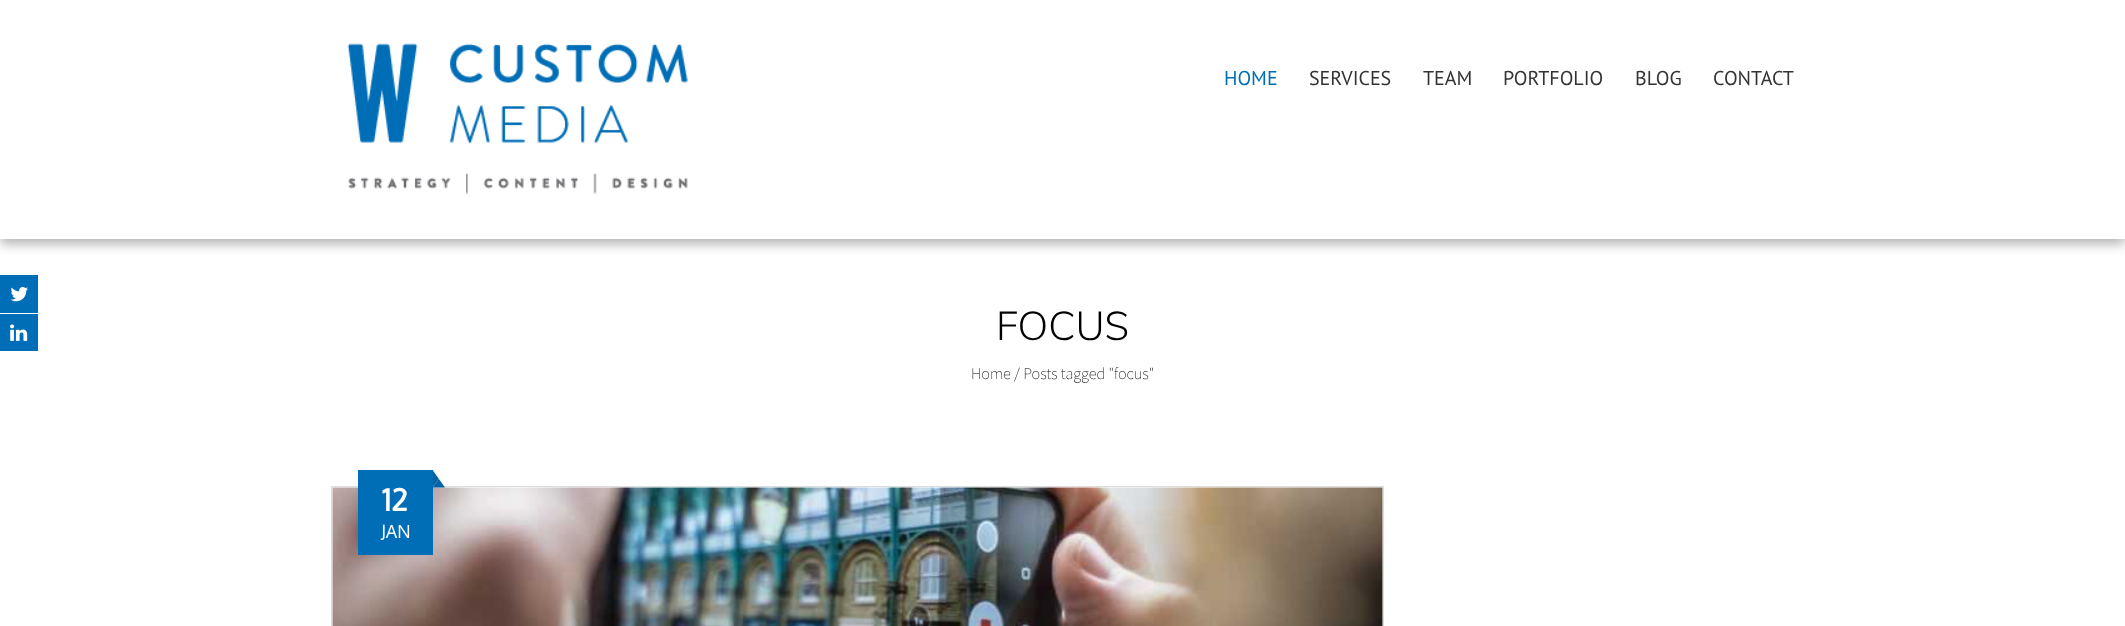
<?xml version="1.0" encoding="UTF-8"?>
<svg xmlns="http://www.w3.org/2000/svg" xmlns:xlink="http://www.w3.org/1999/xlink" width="2125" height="626">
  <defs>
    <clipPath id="clip1"><path d="M 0 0 h 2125 v 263 h -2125 z m 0 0 h 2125 v 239 h -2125 z" clip-rule="evenodd" /></clipPath>
  </defs>
  <rect width="100%" height="100%" fill="#ffffff" />
  <g clip-path="url(#clip1)">
    <rect y="5" width="2125" height="239" fill="#000000" fill-opacity="0.3" filter="blur(6px)" />
  </g>
  <rect y="238" width="2125" height="1" fill="#ffffff" fill-opacity="0.6" />
  <image x="347" y="43" width="341" height="151" xlink:href="image1.png" />
  <rect y="275" width="38" height="38" fill="#006eb7" />
  <image x="10" y="287" width="18" height="15" xlink:href="image2.png" />
  <rect y="314" width="38" height="37" fill="#006eb7" />
  <image x="10" y="324" width="18" height="17" xlink:href="image3.png" />
  <rect x="331.5" y="486.5" width="1052" height="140" fill="none" stroke="#dddddd" />
  <image x="332" y="487" width="1051" height="139" xlink:href="image4.png" />
  <rect x="358" y="470" width="75" height="85" fill="#006eb7" />
  <path d="M 445 487.5 h -12.5 l 6.5 -8.5 z" fill="#0063a5" />
  <path d="M 432.5 487.5 v -17.5 l 6.5 9 z" fill="#0063a5" />
  <text x="1224" y="85" style="font-family: PT Sans; font-size: 20px; fill: #006eb7">HOME</text>
  <text x="1309" y="85" style="font-family: PT Sans; font-size: 20px; fill: #333333">SERVICES</text>
  <text x="1423" y="85" style="font-family: PT Sans; font-size: 20px; fill: #333333">TEAM</text>
  <text x="1503" y="85" style="font-family: PT Sans; font-size: 20px; fill: #333333">PORTFOLIO</text>
  <text x="1635" y="85" style="font-family: PT Sans; font-size: 20px; fill: #333333">BLOG</text>
  <text x="1713" y="85" style="font-family: PT Sans; font-size: 20px; fill: #333333">CONTACT</text>
  <text x="996" y="340" style="font-family: Muli; font-size: 40px; font-weight: 300; fill: #000000">FOCUS</text>
  <text x="971" y="379" style="font-family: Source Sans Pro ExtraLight; font-size: 16.25px; font-weight: 200; fill: #000000">Home / Posts tagged "focus"</text>
  <text x="382" y="511" style="font-family: Oxygen; font-size: 30px; font-weight: bold; fill: #ffffff">12</text>
  <text x="381" y="538" style="font-family: Oxygen; font-size: 18px; fill: #ffffff">JAN</text>
</svg>
